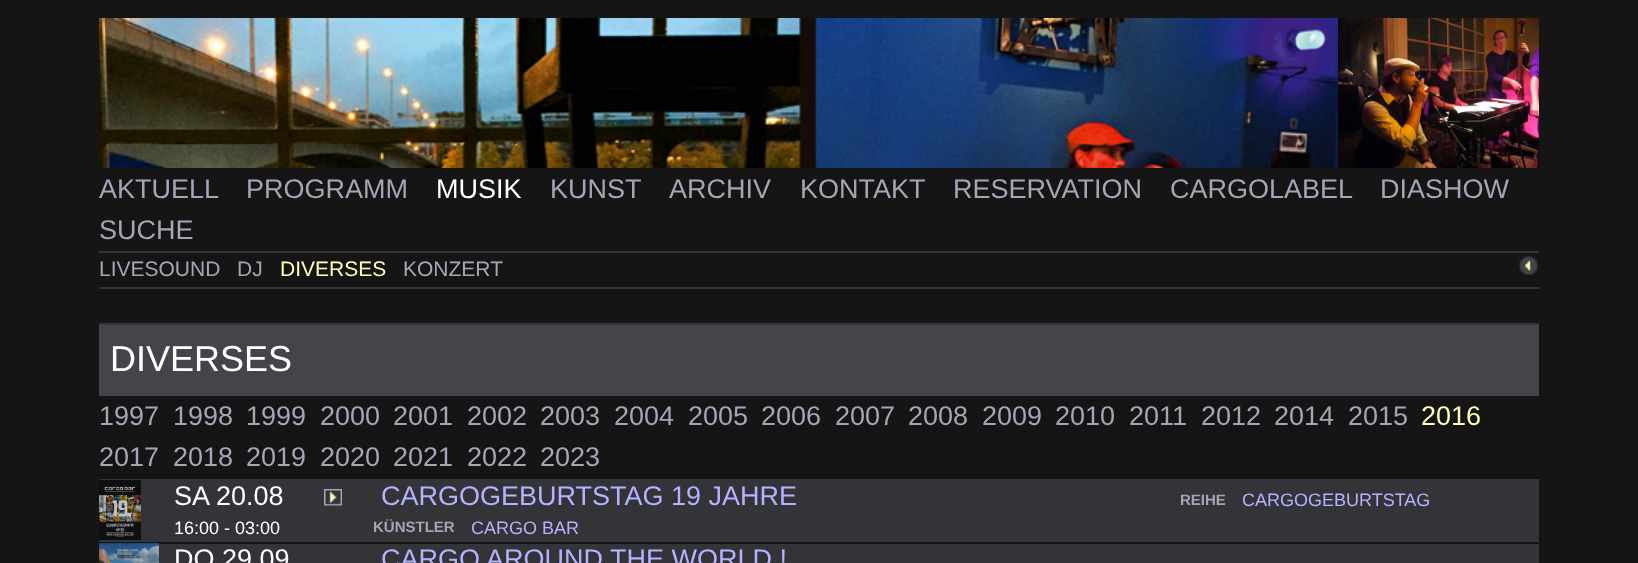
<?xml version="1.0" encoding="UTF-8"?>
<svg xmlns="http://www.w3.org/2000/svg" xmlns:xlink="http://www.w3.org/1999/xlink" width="1638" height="563">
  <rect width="100%" height="100%" fill="#151515" />
  <image x="99" y="18" width="1239" height="150" xlink:href="image1.png" />
  <image x="1338" y="18" width="201" height="150" xlink:href="image2.png" />
  <rect x="99" y="251" width="1440" height="2" fill="#333338" />
  <rect x="99" y="287" width="1440" height="2" fill="#333338" />
  <image x="1519" y="255" width="20" height="22" xlink:href="image3.png" />
  <rect x="99" y="323" width="1440" height="2" fill="#333338" />
  <rect x="99" y="325" width="1440" height="71" fill="#444449" />
  <rect x="99" y="479" width="1440" height="63" fill="#333338" />
  <image x="99" y="480" width="42" height="60" xlink:href="image4.png" />
  <image x="324" y="489" width="18" height="17" xlink:href="image5.png" />
  <rect x="99" y="544" width="1440" height="19" fill="#333338" />
  <image x="99" y="543" width="60" height="20" xlink:href="image6.png" />
  <text x="99" y="198" style="font-family: Liberation Sans; font-size: 27px; fill: #a5a5b7">AKTUELL</text>
  <text x="246" y="198" style="font-family: Liberation Sans; font-size: 27px; fill: #a5a5b7">PROGRAMM</text>
  <text x="436" y="198" style="font-family: Liberation Sans; font-size: 27px; fill: #ffffff">MUSIK</text>
  <text x="550" y="198" style="font-family: Liberation Sans; font-size: 27px; fill: #a5a5b7">KUNST</text>
  <text x="669" y="198" style="font-family: Liberation Sans; font-size: 27px; fill: #a5a5b7">ARCHIV</text>
  <text x="800" y="198" style="font-family: Liberation Sans; font-size: 27px; fill: #a5a5b7">KONTAKT</text>
  <text x="953" y="198" style="font-family: Liberation Sans; font-size: 27px; fill: #a5a5b7">RESERVATION</text>
  <text x="1170" y="198" style="font-family: Liberation Sans; font-size: 27px; fill: #a5a5b7">CARGOLABEL</text>
  <text x="1380" y="198" style="font-family: Liberation Sans; font-size: 27px; fill: #a5a5b7">DIASHOW</text>
  <text x="99" y="239" style="font-family: Liberation Sans; font-size: 27px; fill: #a5a5b7">SUCHE</text>
  <text x="99" y="276" style="font-family: Liberation Sans; font-size: 21px; fill: #a5a5b7">LIVESOUND</text>
  <text x="237" y="276" style="font-family: Liberation Sans; font-size: 21px; fill: #a5a5b7">DJ</text>
  <text x="280" y="276" style="font-family: Liberation Sans; font-size: 21px; fill: #ffffb3">DIVERSES</text>
  <text x="403" y="276" style="font-family: Liberation Sans; font-size: 21px; fill: #a5a5b7">KONZERT</text>
  <text x="110" y="371" style="font-family: Liberation Sans; font-size: 36px; fill: #ffffff">DIVERSES</text>
  <text x="99" y="425" style="font-family: Liberation Sans; font-size: 27px; fill: #a5a5b7">1997</text>
  <text x="173" y="425" style="font-family: Liberation Sans; font-size: 27px; fill: #a5a5b7">1998</text>
  <text x="246" y="425" style="font-family: Liberation Sans; font-size: 27px; fill: #a5a5b7">1999</text>
  <text x="320" y="425" style="font-family: Liberation Sans; font-size: 27px; fill: #a5a5b7">2000</text>
  <text x="393" y="425" style="font-family: Liberation Sans; font-size: 27px; fill: #a5a5b7">2001</text>
  <text x="467" y="425" style="font-family: Liberation Sans; font-size: 27px; fill: #a5a5b7">2002</text>
  <text x="540" y="425" style="font-family: Liberation Sans; font-size: 27px; fill: #a5a5b7">2003</text>
  <text x="614" y="425" style="font-family: Liberation Sans; font-size: 27px; fill: #a5a5b7">2004</text>
  <text x="688" y="425" style="font-family: Liberation Sans; font-size: 27px; fill: #a5a5b7">2005</text>
  <text x="761" y="425" style="font-family: Liberation Sans; font-size: 27px; fill: #a5a5b7">2006</text>
  <text x="835" y="425" style="font-family: Liberation Sans; font-size: 27px; fill: #a5a5b7">2007</text>
  <text x="908" y="425" style="font-family: Liberation Sans; font-size: 27px; fill: #a5a5b7">2008</text>
  <text x="982" y="425" style="font-family: Liberation Sans; font-size: 27px; fill: #a5a5b7">2009</text>
  <text x="1055" y="425" style="font-family: Liberation Sans; font-size: 27px; fill: #a5a5b7">2010</text>
  <text x="1129" y="425" style="font-family: Liberation Sans; font-size: 27px; fill: #a5a5b7">2011</text>
  <text x="1201" y="425" style="font-family: Liberation Sans; font-size: 27px; fill: #a5a5b7">2012</text>
  <text x="1274" y="425" style="font-family: Liberation Sans; font-size: 27px; fill: #a5a5b7">2014</text>
  <text x="1348" y="425" style="font-family: Liberation Sans; font-size: 27px; fill: #a5a5b7">2015</text>
  <text x="1421" y="425" style="font-family: Liberation Sans; font-size: 27px; fill: #ffffb3">2016</text>
  <text x="99" y="466" style="font-family: Liberation Sans; font-size: 27px; fill: #a5a5b7">2017</text>
  <text x="173" y="466" style="font-family: Liberation Sans; font-size: 27px; fill: #a5a5b7">2018</text>
  <text x="246" y="466" style="font-family: Liberation Sans; font-size: 27px; fill: #a5a5b7">2019</text>
  <text x="320" y="466" style="font-family: Liberation Sans; font-size: 27px; fill: #a5a5b7">2020</text>
  <text x="393" y="466" style="font-family: Liberation Sans; font-size: 27px; fill: #a5a5b7">2021</text>
  <text x="467" y="466" style="font-family: Liberation Sans; font-size: 27px; fill: #a5a5b7">2022</text>
  <text x="540" y="466" style="font-family: Liberation Sans; font-size: 27px; fill: #a5a5b7">2023</text>
  <text x="174" y="505" style="font-family: Liberation Sans; font-size: 27px; fill: #ffffff">SA 20.08</text>
  <text x="174" y="534" style="font-family: Liberation Sans; font-size: 18px; fill: #ffffff">16:00 - 03:00</text>
  <text x="381" y="505" style="font-family: Liberation Sans; font-size: 27px; fill: #b3b3ff">CARGOGEBURTSTAG 19 JAHRE</text>
  <text x="373" y="532" style="font-family: Liberation Sans; font-size: 15px; font-weight: bold; fill: #a5a5b7">KÜNSTLER</text>
  <text x="471" y="534" style="font-family: Liberation Sans; font-size: 18px; fill: #b3b3ff">CARGO BAR</text>
  <text x="1180" y="505" style="font-family: Liberation Sans; font-size: 15px; font-weight: bold; fill: #a5a5b7">REIHE</text>
  <text x="1242" y="506" style="font-family: Liberation Sans; font-size: 18px; fill: #b3b3ff">CARGOGEBURTSTAG</text>
  <text x="174" y="568" style="font-family: Liberation Sans; font-size: 27px; fill: #ffffff">DO 29.09</text>
  <text x="381" y="568" style="font-family: Liberation Sans; font-size: 27px; fill: #b3b3ff">CARGO AROUND THE WORLD !</text>
</svg>
